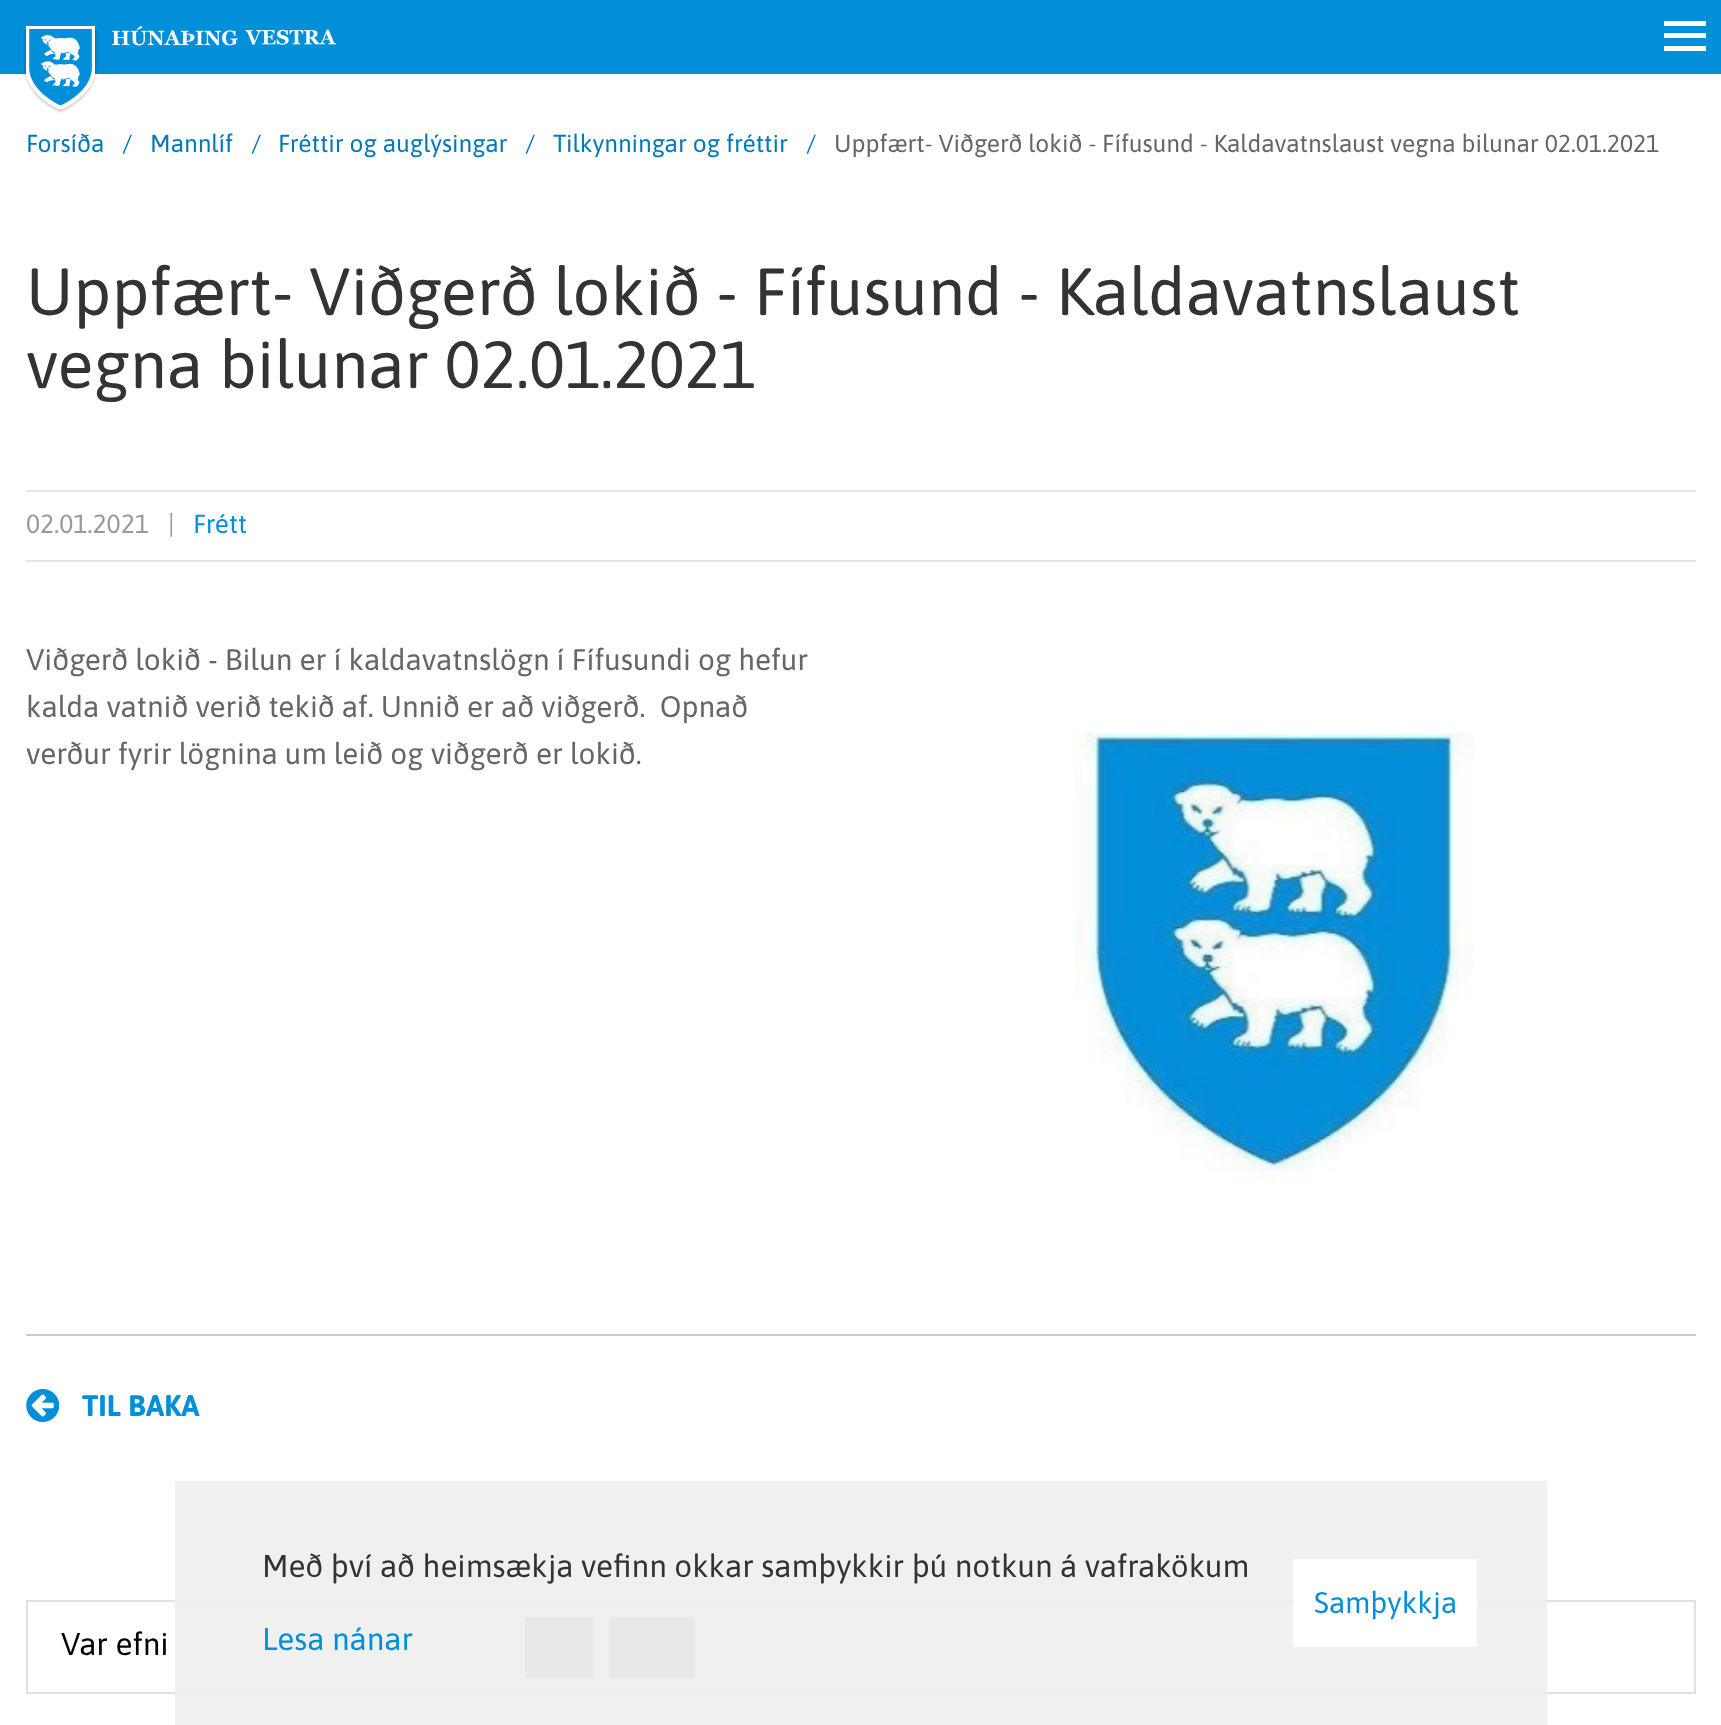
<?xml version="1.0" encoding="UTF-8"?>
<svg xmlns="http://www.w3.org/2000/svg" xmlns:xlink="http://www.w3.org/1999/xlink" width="1721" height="1725">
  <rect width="100%" height="100%" fill="#ffffff" />
  <rect width="1721" height="74" fill="#018fd9" />
  <rect x="1664" y="21" width="42" height="5" fill="#ffffff" />
  <rect x="1664" y="33" width="42" height="5" fill="#ffffff" />
  <rect x="1664" y="46" width="42" height="5" fill="#ffffff" />
  <image x="23" y="29" width="75" height="84" xlink:href="image3.png" />
  <image x="26" y="26" width="69" height="83" xlink:href="image1.png" />
  <image x="112" y="26" width="126" height="20" xlink:href="image2.png" />
  <image x="245" y="29" width="91" height="16" xlink:href="image4.png" />
  <rect x="26" y="490" width="1670" height="2" fill="#e5e5e5" />
  <rect x="26" y="560" width="1670" height="2" fill="#e5e5e5" />
  <image x="1073" y="732" width="401" height="452" xlink:href="image5.png" />
  <rect x="26" y="1334" width="1670" height="2" fill="#cccccc" />
  <image x="26" y="1389" width="34" height="33" xlink:href="image6.png" />
  <rect x="27" y="1601" width="1668" height="92" fill="none" stroke="#e1e1e1" stroke-width="2" />
  <rect x="525" y="1617" width="68" height="61" fill="#aaaaaa" />
  <rect x="609" y="1617" width="86" height="61" fill="#aaaaaa" />
  <rect x="175" y="1481" width="1372" height="244" fill="#eeeeee" fill-opacity="0.9" />
  <rect x="1293" y="1559" width="184" height="88" fill="#ffffff" />
  <text x="26" y="152" style="font-family: Asap; font-size: 24.5px; fill: #0179b8">Forsíða</text>
  <text x="122" y="152" style="font-family: Asap; font-size: 24.5px; fill: #0179b8">/</text>
  <text x="150" y="152" style="font-family: Asap; font-size: 24.5px; fill: #0179b8">Mannlíf</text>
  <text x="251" y="152" style="font-family: Asap; font-size: 24.5px; fill: #0179b8">/</text>
  <text x="278" y="152" style="font-family: Asap; font-size: 24.5px; fill: #0179b8">Fréttir og auglýsingar</text>
  <text x="525" y="152" style="font-family: Asap; font-size: 24.5px; fill: #0179b8">/</text>
  <text x="553" y="152" style="font-family: Asap; font-size: 24.5px; fill: #0179b8">Tilkynningar og fréttir</text>
  <text x="806" y="152" style="font-family: Asap; font-size: 24.5px; fill: #0179b8">/</text>
  <text x="834" y="152" style="font-family: Asap; font-size: 24.5px; fill: #666666">Uppfært- Viðgerð lokið - Fífusund - Kaldavatnslaust vegna bilunar 02.01.2021</text>
  <text x="26" y="315" style="font-family: Asap; font-size: 66.5px; fill: #333333">Uppfært- Viðgerð lokið - Fífusund - Kaldavatnslaust</text>
  <text x="26" y="388" style="font-family: Asap; font-size: 66.5px; fill: #333333">vegna bilunar 02.01.2021</text>
  <text x="26" y="533" style="font-family: Asap; font-size: 26.25px; fill: #999999">02.01.2021</text>
  <text x="168" y="533" style="font-family: Asap; font-size: 26.25px; fill: #999999">|</text>
  <text x="193" y="533" style="font-family: Asap; font-size: 26.25px; fill: #018fd9">Frétt</text>
  <text x="26" y="670" style="font-family: Asap; font-size: 29.75px; fill: #666666">Viðgerð lokið - Bilun er í kaldavatnslögn í Fífusundi og hefur</text>
  <text x="26" y="717" style="font-family: Asap; font-size: 29.75px; fill: #666666" xml:space="preserve">kalda vatnið verið tekið af. Unnið er að viðgerð.  Opnað</text>
  <text x="26" y="764" style="font-family: Asap; font-size: 29.75px; fill: #666666">verður fyrir lögnina um leið og viðgerð er lokið.</text>
  <text x="82" y="1416" style="font-family: Asap; font-size: 29.75px; font-weight: bold; fill: #018fd9">TIL BAKA</text>
  <text x="61" y="1655" style="font-family: Asap; font-size: 31.5px; fill: #000000">Var efni</text>
  <text x="262" y="1577" style="font-family: Asap; font-size: 31.5px; fill: #333333">Með því að heimsækja vefinn okkar samþykkir þú notkun á vafrakökum</text>
  <text x="262" y="1650" style="font-family: Asap; font-size: 31.5px; fill: #018fd9">Lesa nánar</text>
  <text x="1314" y="1613" style="font-family: Asap; font-size: 29.75px; fill: #018fd9">Samþykkja</text>
</svg>
